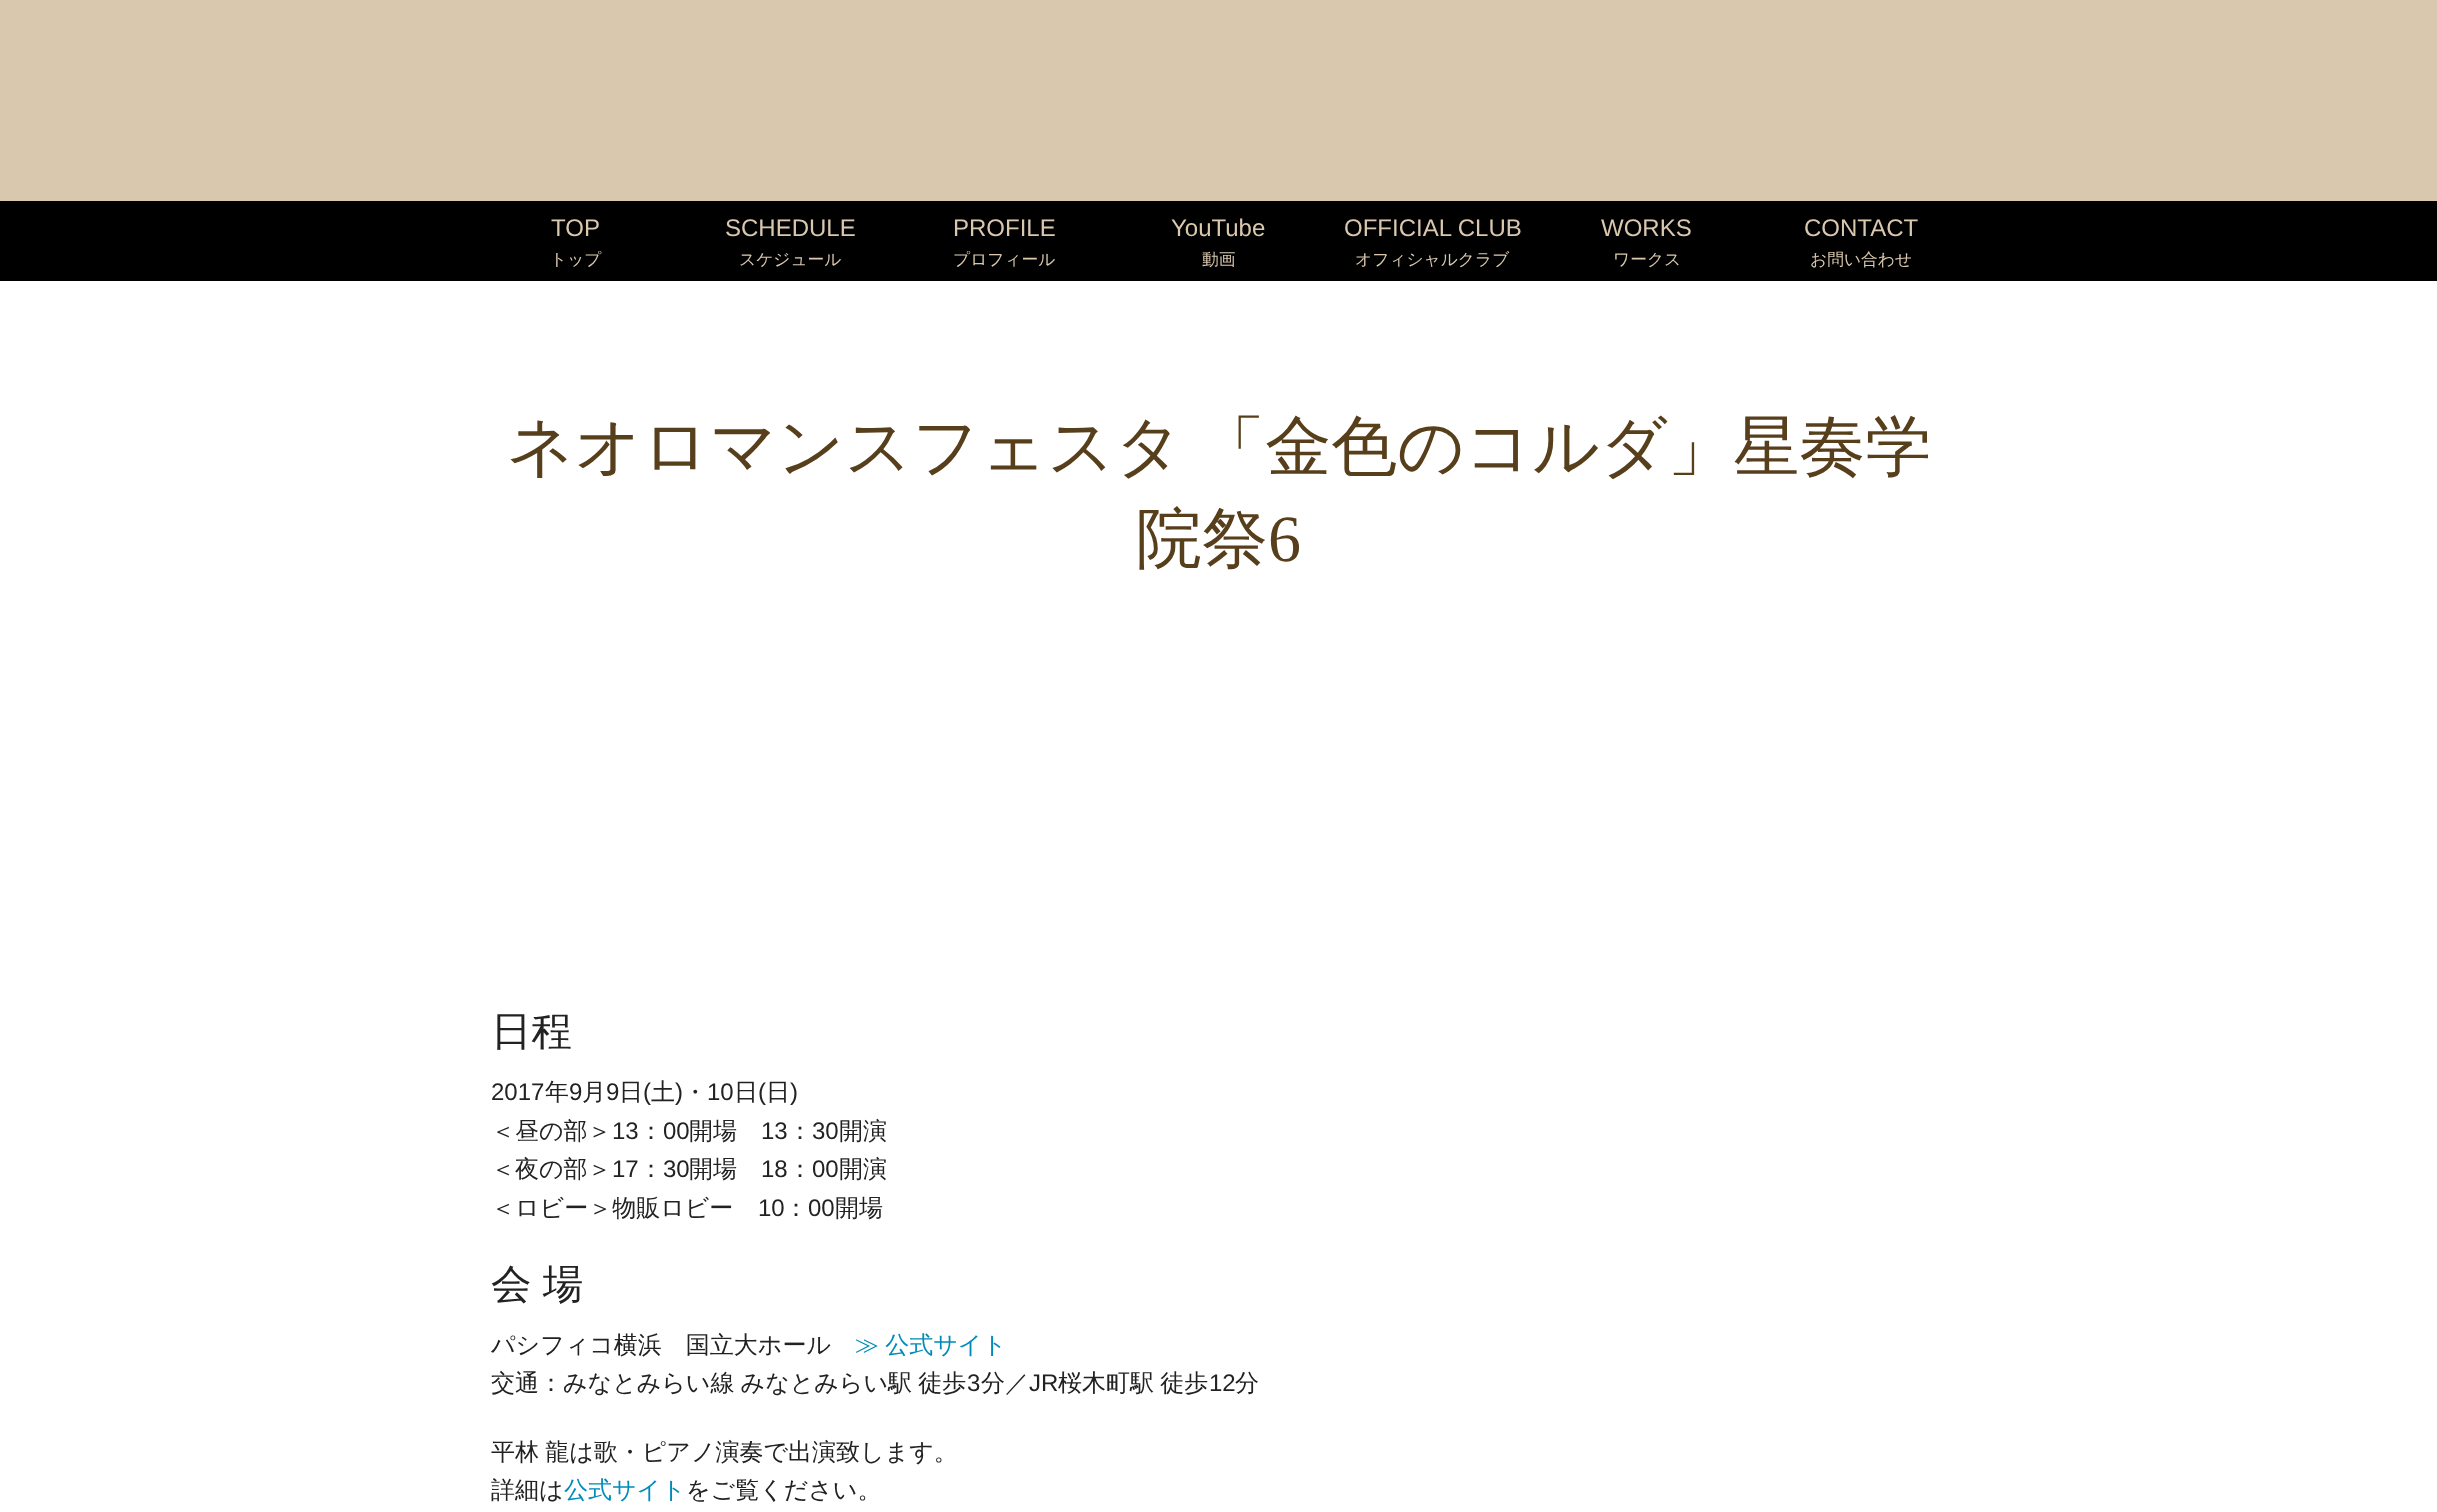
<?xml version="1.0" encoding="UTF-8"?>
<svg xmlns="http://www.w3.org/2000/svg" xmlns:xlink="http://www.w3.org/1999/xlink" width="2437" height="1512">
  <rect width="100%" height="100%" fill="#ffffff" />
  <rect width="2437" height="201" fill="#d9c8ae" />
  <rect y="201" width="2437" height="80" fill="#000000" />
  <text x="551" y="236" style="font-family: Liberation Sans; font-size: 24px; fill: #d9c8ae">TOP</text>
  <text x="550" y="265" style="font-family: WenQuanYi Zen Hei; font-size: 16.75px; font-weight: 500; fill: #d9c8ae">トップ</text>
  <text x="725" y="236" style="font-family: Liberation Sans; font-size: 24px; fill: #d9c8ae">SCHEDULE</text>
  <text x="739" y="265" style="font-family: WenQuanYi Zen Hei; font-size: 16.75px; font-weight: 500; fill: #d9c8ae">スケジュール</text>
  <text x="953" y="236" style="font-family: Liberation Sans; font-size: 24px; fill: #d9c8ae">PROFILE</text>
  <text x="953" y="265" style="font-family: WenQuanYi Zen Hei; font-size: 16.75px; font-weight: 500; fill: #d9c8ae">プロフィール</text>
  <text x="1171" y="236" style="font-family: Liberation Sans; font-size: 24px; fill: #d9c8ae">YouTube</text>
  <text x="1202" y="265" style="font-family: WenQuanYi Zen Hei; font-size: 16.75px; font-weight: 500; fill: #d9c8ae">動画</text>
  <text x="1344" y="236" style="font-family: Liberation Sans; font-size: 24px; fill: #d9c8ae">OFFICIAL CLUB</text>
  <text x="1355" y="265" style="font-family: WenQuanYi Zen Hei; font-size: 16.75px; font-weight: 500; fill: #d9c8ae">オフィシャルクラブ</text>
  <text x="1601" y="236" style="font-family: Liberation Sans; font-size: 24px; fill: #d9c8ae">WORKS</text>
  <text x="1613" y="265" style="font-family: WenQuanYi Zen Hei; font-size: 16.75px; font-weight: 500; fill: #d9c8ae">ワークス</text>
  <text x="1804" y="236" style="font-family: Liberation Sans; font-size: 24px; fill: #d9c8ae">CONTACT</text>
  <text x="1810" y="265" style="font-family: WenQuanYi Zen Hei; font-size: 16.75px; font-weight: 500; fill: #d9c8ae">お問い合わせ</text>
  <text x="507" y="469" word-spacing="-3" style="font-family: WenQuanYi Zen Hei; font-size: 66px; font-weight: 500; fill: #583f1c">ネオロマンスフェスタ 「金色のコルダ」星奏学</text>
  <text x="1136" y="561" style="font-family: WenQuanYi Zen Hei; font-size: 66px; font-weight: 500; fill: #583f1c">院祭</text>
  <text x="1268" y="561" style="font-family: Liberation Serif; font-size: 66px; fill: #583f1c">6</text>
  <text x="491" y="1045" style="font-family: WenQuanYi Zen Hei; font-size: 40.5px; font-weight: 500; fill: #222222">日程</text>
  <text x="491" y="1100" style="font-family: Liberation Sans; font-size: 24px; fill: #222222">2017</text>
  <text x="545" y="1100" style="font-family: WenQuanYi Zen Hei; font-size: 24px; font-weight: 500; fill: #222222">年</text>
  <text x="569" y="1100" style="font-family: Liberation Sans; font-size: 24px; fill: #222222">9</text>
  <text x="582" y="1100" style="font-family: WenQuanYi Zen Hei; font-size: 24px; font-weight: 500; fill: #222222">月</text>
  <text x="606" y="1100" style="font-family: Liberation Sans; font-size: 24px; fill: #222222">9</text>
  <text x="619" y="1100" style="font-family: WenQuanYi Zen Hei; font-size: 24px; font-weight: 500; fill: #222222">日</text>
  <text x="643" y="1100" style="font-family: Liberation Sans; font-size: 24px; fill: #222222">(</text>
  <text x="651" y="1100" style="font-family: WenQuanYi Zen Hei; font-size: 24px; font-weight: 500; fill: #222222">土</text>
  <text x="675" y="1100" style="font-family: Liberation Sans; font-size: 24px; fill: #222222">)</text>
  <text x="683" y="1100" style="font-family: WenQuanYi Zen Hei; font-size: 24px; font-weight: 500; fill: #222222">・</text>
  <text x="707" y="1100" style="font-family: Liberation Sans; font-size: 24px; fill: #222222">10</text>
  <text x="734" y="1100" style="font-family: WenQuanYi Zen Hei; font-size: 24px; font-weight: 500; fill: #222222">日</text>
  <text x="758" y="1100" style="font-family: Liberation Sans; font-size: 24px; fill: #222222">(</text>
  <text x="766" y="1100" style="font-family: WenQuanYi Zen Hei; font-size: 24px; font-weight: 500; fill: #222222">日</text>
  <text x="790" y="1100" style="font-family: Liberation Sans; font-size: 24px; fill: #222222">)</text>
  <text x="491" y="1139" style="font-family: WenQuanYi Zen Hei; font-size: 24px; font-weight: 500; fill: #222222">＜昼の部＞</text>
  <text x="612" y="1139" style="font-family: Liberation Sans; font-size: 24px; fill: #222222">13</text>
  <text x="639" y="1139" style="font-family: WenQuanYi Zen Hei; font-size: 24px; font-weight: 500; fill: #222222">：</text>
  <text x="663" y="1139" style="font-family: Liberation Sans; font-size: 24px; fill: #222222">00</text>
  <text x="689" y="1139" style="font-family: WenQuanYi Zen Hei; font-size: 24px; font-weight: 500; fill: #222222">開場</text>
  <text x="761" y="1139" style="font-family: Liberation Sans; font-size: 24px; fill: #222222">13</text>
  <text x="788" y="1139" style="font-family: WenQuanYi Zen Hei; font-size: 24px; font-weight: 500; fill: #222222">：</text>
  <text x="812" y="1139" style="font-family: Liberation Sans; font-size: 24px; fill: #222222">30</text>
  <text x="839" y="1139" style="font-family: WenQuanYi Zen Hei; font-size: 24px; font-weight: 500; fill: #222222">開演</text>
  <text x="491" y="1177" style="font-family: WenQuanYi Zen Hei; font-size: 24px; font-weight: 500; fill: #222222">＜夜の部＞</text>
  <text x="612" y="1177" style="font-family: Liberation Sans; font-size: 24px; fill: #222222">17</text>
  <text x="639" y="1177" style="font-family: WenQuanYi Zen Hei; font-size: 24px; font-weight: 500; fill: #222222">：</text>
  <text x="663" y="1177" style="font-family: Liberation Sans; font-size: 24px; fill: #222222">30</text>
  <text x="689" y="1177" style="font-family: WenQuanYi Zen Hei; font-size: 24px; font-weight: 500; fill: #222222">開場</text>
  <text x="761" y="1177" style="font-family: Liberation Sans; font-size: 24px; fill: #222222">18</text>
  <text x="788" y="1177" style="font-family: WenQuanYi Zen Hei; font-size: 24px; font-weight: 500; fill: #222222">：</text>
  <text x="812" y="1177" style="font-family: Liberation Sans; font-size: 24px; fill: #222222">00</text>
  <text x="839" y="1177" style="font-family: WenQuanYi Zen Hei; font-size: 24px; font-weight: 500; fill: #222222">開演</text>
  <text x="491" y="1216" style="font-family: WenQuanYi Zen Hei; font-size: 24px; font-weight: 500; fill: #222222">＜ロビー＞物販ロビー</text>
  <text x="758" y="1216" style="font-family: Liberation Sans; font-size: 24px; fill: #222222">10</text>
  <text x="784" y="1216" style="font-family: WenQuanYi Zen Hei; font-size: 24px; font-weight: 500; fill: #222222">：</text>
  <text x="808" y="1216" style="font-family: Liberation Sans; font-size: 24px; fill: #222222">00</text>
  <text x="835" y="1216" style="font-family: WenQuanYi Zen Hei; font-size: 24px; font-weight: 500; fill: #222222">開場</text>
  <text x="491" y="1298" word-spacing="-1" style="font-family: WenQuanYi Zen Hei; font-size: 40.5px; font-weight: 500; fill: #222222">会 場</text>
  <text x="491" y="1353" style="font-family: WenQuanYi Zen Hei; font-size: 24px; font-weight: 500; fill: #222222">パシフィコ横浜　国立大ホール</text>
  <text x="855" y="1353" word-spacing="-1" style="font-family: WenQuanYi Zen Hei; font-size: 24px; font-weight: 500; fill: #008cba">≫ 公式サイト</text>
  <text x="491" y="1391" word-spacing="-1" style="font-family: WenQuanYi Zen Hei; font-size: 24px; font-weight: 500; fill: #222222">交通：みなとみらい線 みなとみらい駅 徒歩</text>
  <text x="967" y="1391" style="font-family: Liberation Sans; font-size: 24px; fill: #222222">3</text>
  <text x="981" y="1391" style="font-family: WenQuanYi Zen Hei; font-size: 24px; font-weight: 500; fill: #222222">分／</text>
  <text x="1029" y="1391" style="font-family: Liberation Sans; font-size: 24px; fill: #222222">JR</text>
  <text x="1058" y="1391" word-spacing="-1" style="font-family: WenQuanYi Zen Hei; font-size: 24px; font-weight: 500; fill: #222222">桜木町駅 徒歩</text>
  <text x="1209" y="1391" style="font-family: Liberation Sans; font-size: 24px; fill: #222222">12</text>
  <text x="1235" y="1391" style="font-family: WenQuanYi Zen Hei; font-size: 24px; font-weight: 500; fill: #222222">分</text>
  <text x="491" y="1460" word-spacing="-1" style="font-family: WenQuanYi Zen Hei; font-size: 24px; font-weight: 500; fill: #222222">平林 龍は歌・ピアノ演奏で出演致します。</text>
  <text x="491" y="1498" style="font-family: WenQuanYi Zen Hei; font-size: 24px; font-weight: 500; fill: #222222">詳細は</text>
  <text x="564" y="1498" style="font-family: WenQuanYi Zen Hei; font-size: 24px; font-weight: 500; fill: #008cba">公式サイト</text>
  <text x="686" y="1498" style="font-family: WenQuanYi Zen Hei; font-size: 24px; font-weight: 500; fill: #222222">をご覧ください。</text>
</svg>
